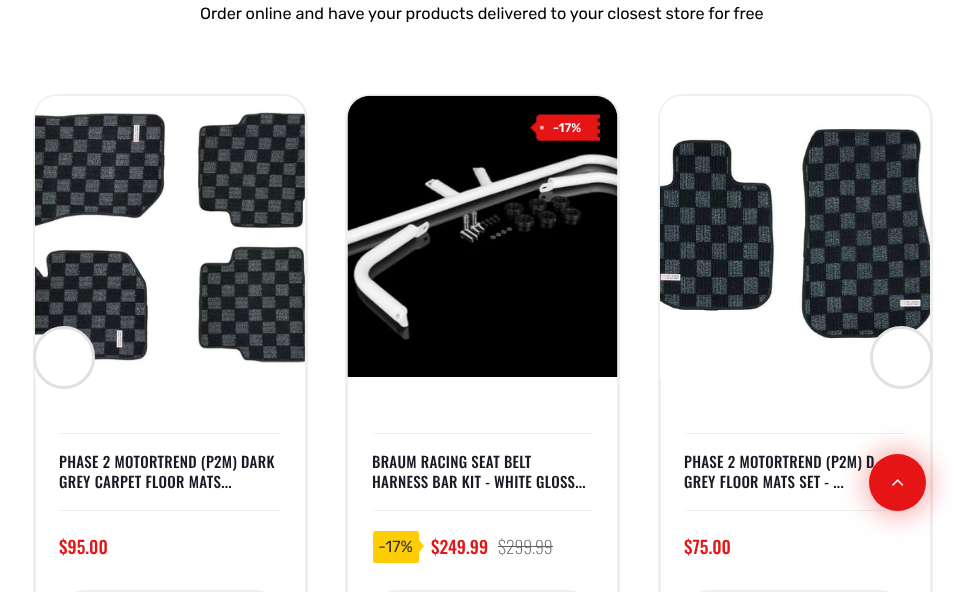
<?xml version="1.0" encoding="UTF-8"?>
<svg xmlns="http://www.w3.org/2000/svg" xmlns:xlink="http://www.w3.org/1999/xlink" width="963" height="592">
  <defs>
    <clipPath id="clip1"><rect x="373" y="451" width="220" height="42" /></clipPath>
  </defs>
  <rect width="100%" height="100%" fill="#ffffff" />
  <rect x="34.5" y="95.5" width="272" height="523" rx="23.5" fill="none" stroke="#efefef" stroke-width="3" />
  <path d="M 58 96 h 224 c 12.5 0 23 10.5 23 23 v 259 h -270 v -259 c 0 -12.5 10.5 -23 23 -23 z" fill="#ffffff" />
  <image x="35" y="96" width="270" height="268" xlink:href="image1.png" />
  <rect x="60" y="433" width="220" height="1" fill="#efefef" />
  <rect x="60" y="510" width="220" height="1" fill="#efefef" />
  <rect x="60" y="590" width="220" height="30" rx="27.5" fill="#efefef" />
  <rect x="346.5" y="95.5" width="272" height="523" rx="23.5" fill="none" stroke="#efefef" stroke-width="3" />
  <path d="M 371 96 h 224 c 12.5 0 23 10.5 23 23 v 259 h -270 v -259 c 0 -12.5 10.5 -23 23 -23 z" fill="#ffffff" />
  <image x="347" y="95" width="271" height="282" xlink:href="image2.png" />
  <image x="529" y="114" width="71" height="27" xlink:href="image3.png" />
  <rect x="373" y="433" width="220" height="1" fill="#efefef" />
  <rect x="373" y="510" width="220" height="1" fill="#efefef" />
  <rect x="373" y="531" width="46" height="32" rx="2.5" fill="#ffcd05" />
  <path d="M 419 552.5 v -12.5 l 5 6 z" fill="#ffcd05" />
  <rect x="498" y="546" width="55" height="1" fill="#606161" />
  <rect x="373" y="590" width="220" height="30" rx="27.5" fill="#efefef" />
  <rect x="659.5" y="95.5" width="272" height="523" rx="23.5" fill="none" stroke="#efefef" stroke-width="3" />
  <path d="M 683 96 h 224 c 12.5 0 23 10.5 23 23 v 259 h -270 v -259 c 0 -12.5 10.5 -23 23 -23 z" fill="#ffffff" />
  <image x="660" y="96" width="270" height="277" xlink:href="image4.png" />
  <rect x="685" y="433" width="220" height="1" fill="#efefef" />
  <rect x="685" y="510" width="220" height="1" fill="#efefef" />
  <rect x="685" y="590" width="220" height="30" rx="27.5" fill="#efefef" />
  <rect x="34.5" y="327.5" width="59" height="60" rx="29.5" fill="#ffffff" stroke="#e1e1e1" stroke-width="3" />
  <circle cx="901.5" cy="357.5" r="30" fill="#ffffff" stroke="#e1e1e1" stroke-width="3" />
  <rect x="863" y="448" width="70" height="70" rx="35" fill="#e51515" fill-opacity="0.3" filter="blur(12.5px)" />
  <text x="200" y="19" style="font-family: Rubik; font-size: 16.25px; fill: #000000">Order online and have your products delivered to your closest store for free</text>
  <text x="59" y="468" style="font-family: Oswald; font-size: 15px; font-weight: 500; letter-spacing: 0.3px; fill: #181b23">PHASE 2 MOTORTREND (P2M) DARK</text>
  <text x="59" y="488" style="font-family: Oswald; font-size: 15px; font-weight: 500; letter-spacing: 0.3px; fill: #181b23">GREY CARPET FLOOR MATS...</text>
  <text x="59" y="554" style="font-family: Oswald; font-size: 17.5px; font-weight: 500; fill: #e51515">$95.00</text>
  <text x="553" y="132" style="font-family: Rubik; font-size: 12.5px; font-weight: 500; fill: #ffffff">-17%</text>
  <g clip-path="url(#clip1)">
    <text x="372" y="468" style="font-family: Oswald; font-size: 15px; font-weight: 500; letter-spacing: 0.3px; fill: #181b23">BRAUM RACING SEAT BELT</text>
    <text x="372" y="488" style="font-family: Oswald; font-size: 15px; font-weight: 500; letter-spacing: 0.3px; fill: #181b23">HARNESS BAR KIT - WHITE GLOSS...</text>
  </g>
  <text x="378" y="552" style="font-family: Rubik; font-size: 16.25px; fill: #30343c">-17%</text>
  <text x="431" y="554" style="font-family: Oswald; font-size: 17.5px; font-weight: 500; fill: #e51515">$249.99</text>
  <text x="498" y="554" style="font-family: Oswald; font-size: 17.5px; font-weight: 200; fill: #606161">$299.99</text>
  <text x="684" y="468" style="font-family: Oswald; font-size: 15px; font-weight: 500; letter-spacing: 0.3px; fill: #181b23">PHASE 2 MOTORTREND (P2M) D</text>
  <text x="684" y="488" style="font-family: Oswald; font-size: 15px; font-weight: 500; letter-spacing: 0.3px; fill: #181b23">GREY FLOOR MATS SET - ...</text>
  <text x="684" y="554" style="font-family: Oswald; font-size: 17.5px; font-weight: 500; fill: #e51515">$75.00</text>
  <circle cx="897.5" cy="482.5" r="28.5" fill="#e51515" />
  <image x="892" y="479" width="12" height="7" xlink:href="image5.png" />
</svg>
